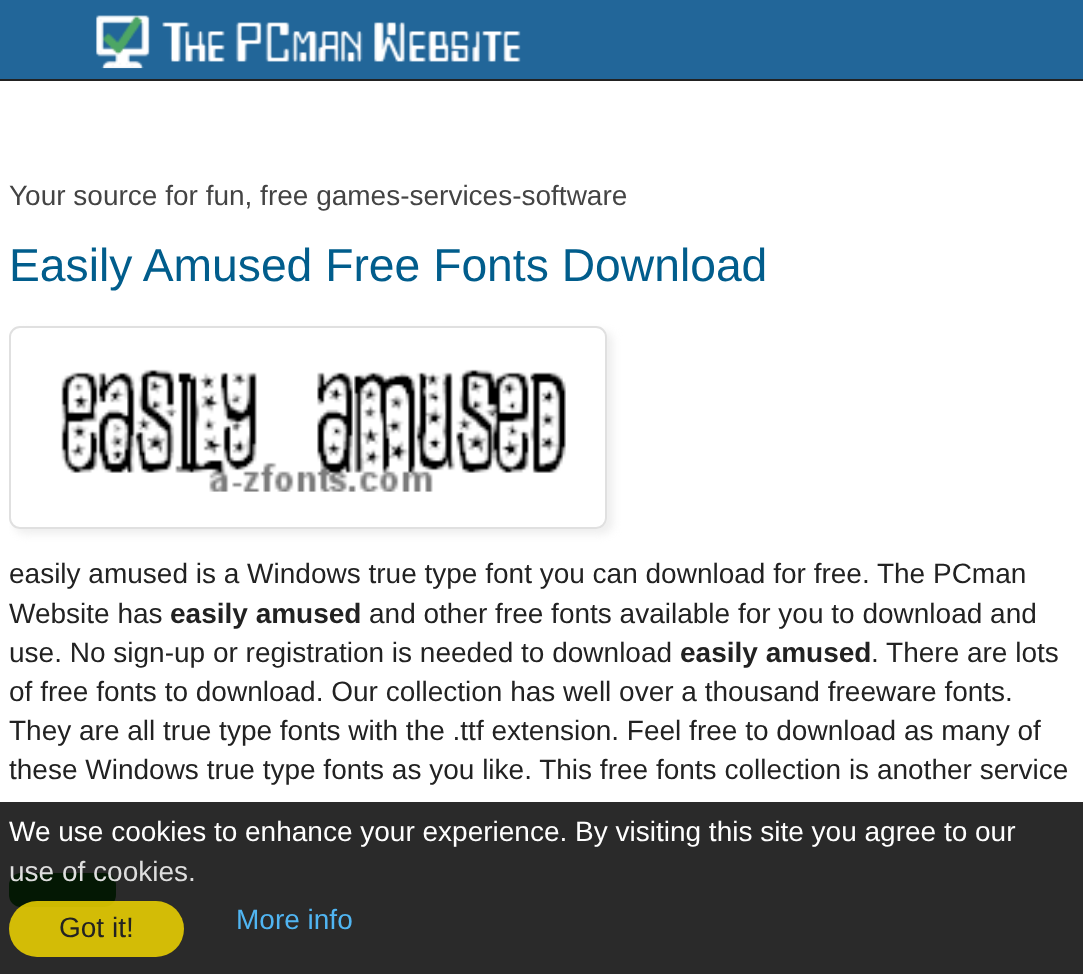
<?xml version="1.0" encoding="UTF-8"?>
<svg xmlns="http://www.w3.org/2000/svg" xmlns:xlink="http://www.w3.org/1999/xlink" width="1083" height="974">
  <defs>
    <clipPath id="clip1"><rect x="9" y="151" width="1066" height="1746" /></clipPath>
    <clipPath id="clip2"><path d="M 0 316 h 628 v 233 h -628 z m 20 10 h 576 c 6 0 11 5 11 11 v 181 c 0 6 -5 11 -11 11 h -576 c -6 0 -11 -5 -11 -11 v -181 c 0 -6 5 -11 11 -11 z" clip-rule="evenodd" /></clipPath>
  </defs>
  <rect width="100%" height="100%" fill="#226699" />
  <rect y="79" width="1083" height="2" fill="#222222" />
  <image x="96" y="15" width="425" height="54" xlink:href="image1.png" />
  <rect y="81" width="1083" height="893" fill="#ffffff" />
  <g clip-path="url(#clip1)">
    <g clip-path="url(#clip2)">
      <rect x="14" y="331" width="599" height="203" rx="11" fill="#eeeeee" filter="blur(4.5px)" />
    </g>
  </g>
  <rect x="10" y="327" width="596" height="201" rx="10" fill="none" stroke="#e0e0e0" stroke-width="2" />
  <image x="61" y="369" width="505" height="123" xlink:href="image2.png" />
  <rect x="9" y="873" width="107" height="34" rx="12" fill="#008800" />
  <rect y="802" width="1083" height="172" fill="#050505" fill-opacity="0.85" />
  <rect x="9" y="901" width="175" height="56" rx="28" fill="#f1d600" fill-opacity="0.85" />
  <text x="9" y="205" style="font-family: Liberation Sans; font-size: 28px; fill: #444444">Your source for fun, free games-services-software</text>
  <text x="9" y="281" style="font-family: Liberation Sans; font-size: 46.25px; fill: #015d8c">Easily Amused Free Fonts Download</text>
  <text x="9" y="583" style="font-family: Liberation Sans; font-size: 28px; fill: #222222">easily amused is a Windows true type font you can download for free. The PCman</text>
  <text x="9" y="623" style="font-family: Liberation Sans; font-size: 28px; fill: #222222">Website has</text>
  <text x="170" y="623" style="font-family: Liberation Sans; font-size: 28px; font-weight: bold; fill: #222222">easily amused</text>
  <text x="369" y="623" style="font-family: Liberation Sans; font-size: 28px; fill: #222222">and other free fonts available for you to download and</text>
  <text x="9" y="662" style="font-family: Liberation Sans; font-size: 28px; fill: #222222">use. No sign-up or registration is needed to download</text>
  <text x="680" y="662" style="font-family: Liberation Sans; font-size: 28px; font-weight: bold; fill: #222222">easily amused</text>
  <text x="871" y="662" style="font-family: Liberation Sans; font-size: 28px; fill: #222222">. There are lots</text>
  <text x="9" y="701" style="font-family: Liberation Sans; font-size: 28px; fill: #222222">of free fonts to download. Our collection has well over a thousand freeware fonts.</text>
  <text x="9" y="740" style="font-family: Liberation Sans; font-size: 28px; fill: #222222">They are all true type fonts with the .ttf extension. Feel free to download as many of</text>
  <text x="9" y="779" style="font-family: Liberation Sans; font-size: 28px; fill: #222222">these Windows true type fonts as you like. This free fonts collection is another service</text>
  <text x="9" y="841" style="font-family: Liberation Sans; font-size: 28px; fill: #ffffff">We use cookies to enhance your experience. By visiting this site you agree to our</text>
  <text x="9" y="881" style="font-family: Liberation Sans; font-size: 28px; fill: #dedede">use of cookies.</text>
  <text x="59" y="937" style="font-family: Liberation Sans; font-size: 28px; fill: #222222">Got it!</text>
  <text x="236" y="929" style="font-family: Liberation Sans; font-size: 28px; fill: #50b5f2">More info</text>
</svg>
